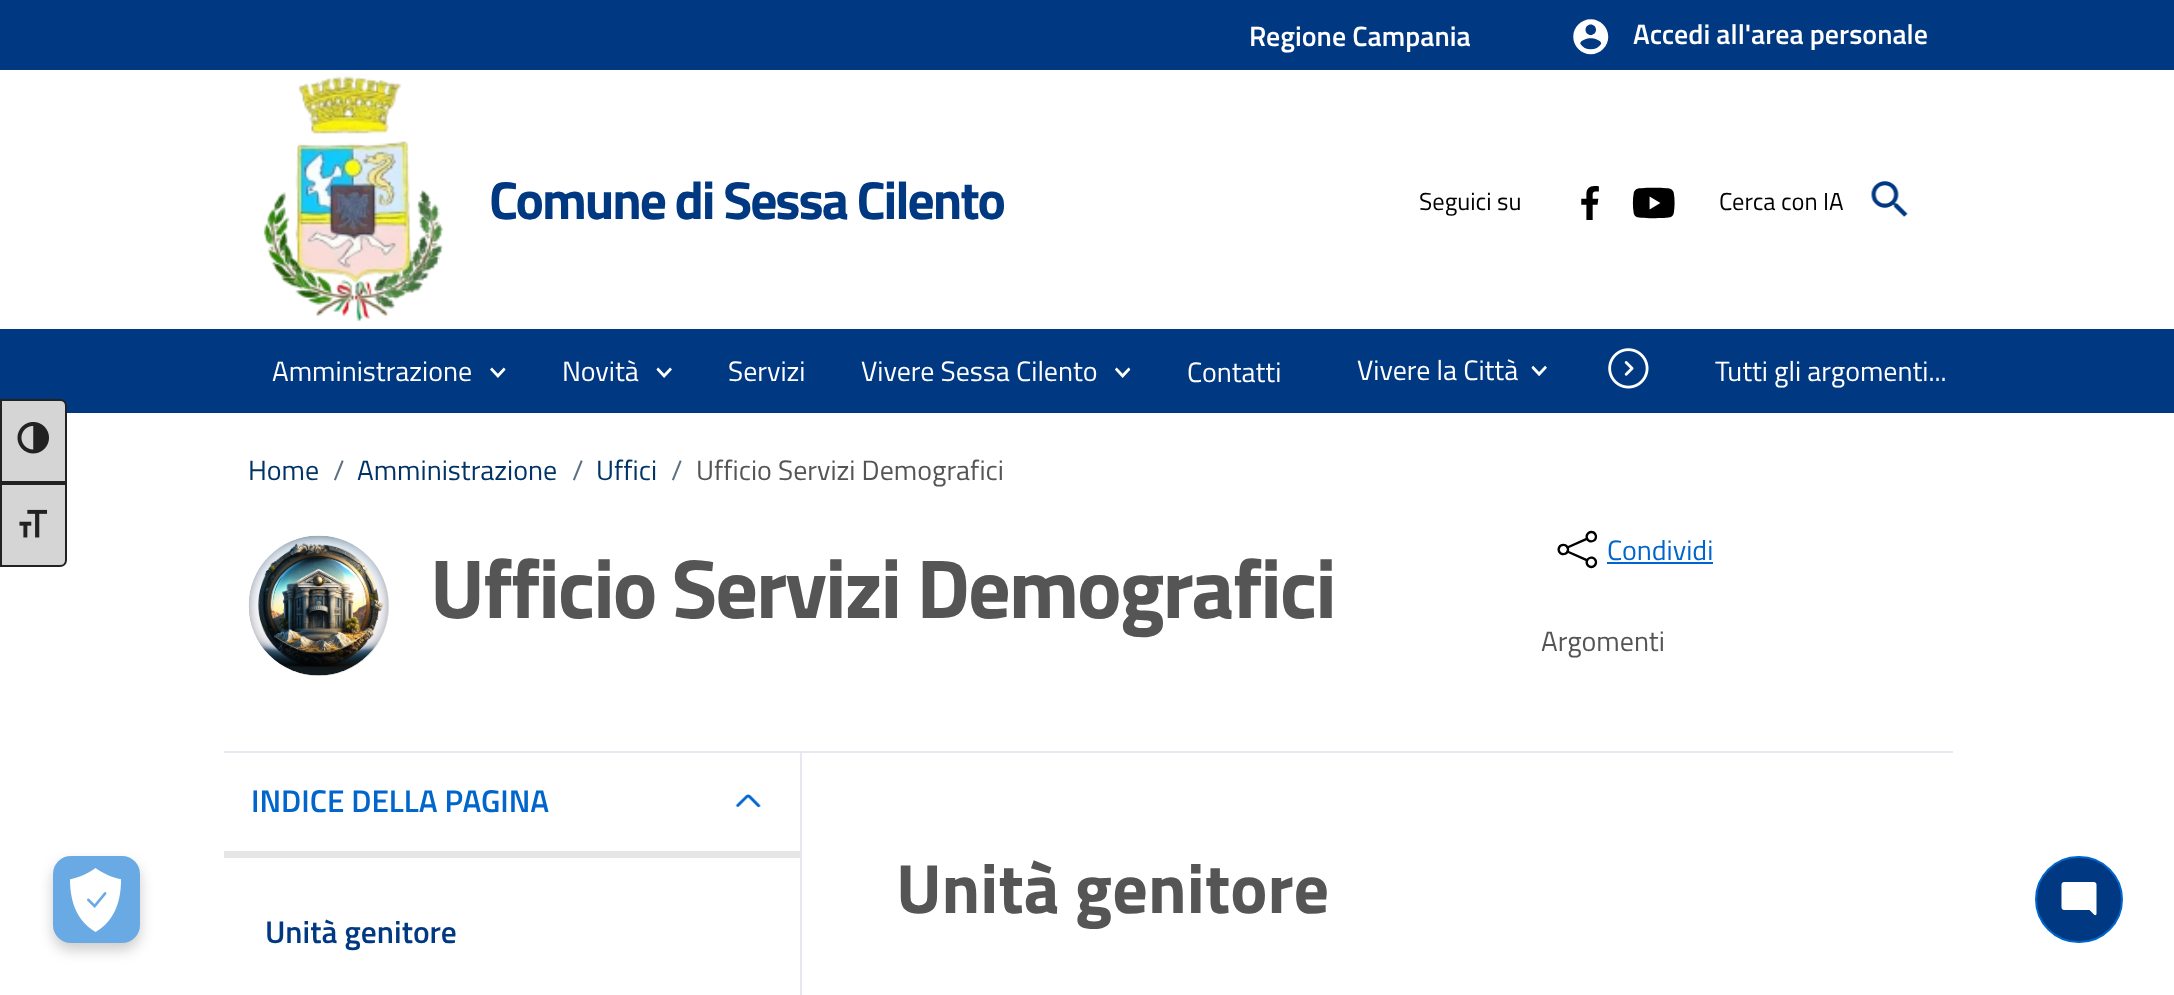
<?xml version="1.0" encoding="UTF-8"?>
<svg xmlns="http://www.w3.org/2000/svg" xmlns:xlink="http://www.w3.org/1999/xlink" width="2174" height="995">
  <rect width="100%" height="100%" fill="#ffffff" />
  <rect y="329" width="2174" height="84" fill="#003882" />
  <path d="M 1 400 h 59 c 3.5 0 6 2.5 6 6 v 76 h -65 z" fill="#d5d5d5" stroke="#222222" stroke-width="2" />
  <image x="17" y="422" width="32" height="32" xlink:href="image1.png" />
  <path d="M 1 484 h 65 v 76 c 0 3.5 -2.5 6 -6 6 h -59 z" fill="#d5d5d5" stroke="#222222" stroke-width="2" />
  <image x="19" y="509" width="29" height="29" xlink:href="image2.png" />
  <rect width="2174" height="70" fill="#003882" />
  <image x="1573" y="19" width="36" height="36" xlink:href="image3.png" />
  <image x="263" y="76" width="181" height="246" xlink:href="image4.png" />
  <image x="1581" y="186" width="18" height="34" xlink:href="image5.png" />
  <image x="1632" y="187" width="43" height="32" xlink:href="image6.png" />
  <image x="1871" y="181" width="37" height="36" xlink:href="image7.png" />
  <image x="490" y="367" width="16" height="11" xlink:href="image8.png" />
  <image x="656" y="367" width="16" height="11" xlink:href="image9.png" />
  <image x="1115" y="367" width="16" height="11" xlink:href="image10.png" />
  <image x="1531" y="365" width="16" height="11" xlink:href="image11.png" />
  <image x="1608" y="348" width="41" height="41" xlink:href="image12.png" />
  <circle cx="319" cy="606" r="70" fill="#d8d9da" />
  <image x="248" y="535" width="140" height="141" xlink:href="image13.png" />
  <image x="1557" y="530" width="41" height="39" xlink:href="image14.png" />
  <rect x="1607" y="562" width="106" height="2" fill="#0066cc" />
  <rect x="224" y="751" width="1729" height="2" fill="#e9e6f2" />
  <image x="735" y="794" width="26" height="14" xlink:href="image15.png" />
  <rect x="224" y="851" width="576" height="7" fill="#e6e6e6" />
  <rect x="800" y="753" width="2" height="242" fill="#e9e6f2" />
  <rect x="2036" y="857" width="86" height="85" rx="42.5" fill="#003882" stroke="#0066cc" stroke-width="2" />
  <image x="2061" y="882" width="36" height="34" xlink:href="image16.png" />
  <rect x="53" y="863" width="87" height="87" rx="18" fill="#000000" fill-opacity="0.2" filter="blur(7px)" />
  <rect x="53" y="856" width="87" height="87" rx="18" fill="#6aaae4" />
  <image x="70" y="868" width="52" height="64" xlink:href="image17.png" />
  <text x="1249" y="46" style="font-family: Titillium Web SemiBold; font-size: 28px; font-weight: 600; fill: #ffffff">Regione Campania</text>
  <text x="1633" y="44" style="font-family: Titillium Web SemiBold; font-size: 28px; font-weight: 600; fill: #ffffff">Accedi all'area personale</text>
  <text x="489" y="219" style="font-family: Titillium Web; font-size: 53.5px; font-weight: bold; letter-spacing: -2.1px; fill: #003882">Comune di Sessa Cilento</text>
  <text x="1419" y="210" style="font-family: Titillium Web; font-size: 24.5px; fill: #000000">Seguici su</text>
  <text x="1719" y="210" style="font-family: Titillium Web; font-size: 24.5px; fill: #000000">Cerca con IA</text>
  <text x="272" y="381" style="font-family: Titillium Web; font-size: 28px; fill: #ffffff">Amministrazione</text>
  <text x="562" y="381" style="font-family: Titillium Web; font-size: 28px; fill: #ffffff">Novità</text>
  <text x="728" y="381" style="font-family: Titillium Web; font-size: 28px; fill: #ffffff">Servizi</text>
  <text x="861" y="381" style="font-family: Titillium Web; font-size: 28px; fill: #ffffff">Vivere Sessa Cilento</text>
  <text x="1187" y="382" style="font-family: Titillium Web; font-size: 28px; fill: #ffffff">Contatti</text>
  <text x="1357" y="380" style="font-family: Titillium Web; font-size: 28px; fill: #ffffff">Vivere la Città</text>
  <text x="1715" y="381" style="font-family: Titillium Web; font-size: 28px; fill: #ffffff">Tutti gli argomenti...</text>
  <text x="248" y="480" style="font-family: Titillium Web; font-size: 28px; fill: #003366">Home</text>
  <text x="333" y="480" style="font-family: Titillium Web; font-size: 28px; fill: #5d7083">/</text>
  <text x="357" y="480" style="font-family: Titillium Web; font-size: 28px; fill: #003366">Amministrazione</text>
  <text x="572" y="480" style="font-family: Titillium Web; font-size: 28px; fill: #5d7083">/</text>
  <text x="596" y="480" style="font-family: Titillium Web; font-size: 28px; fill: #003366">Uffici</text>
  <text x="671" y="480" style="font-family: Titillium Web; font-size: 28px; fill: #5d7083">/</text>
  <text x="696" y="480" style="font-family: Titillium Web; font-size: 28px; fill: #555555">Ufficio Servizi Demografici</text>
  <text x="430" y="618" style="font-family: Titillium Web; font-size: 84px; font-weight: bold; letter-spacing: -2.1px; fill: #555555">Ufficio Servizi Demografici</text>
  <text x="1607" y="560" style="font-family: Titillium Web; font-size: 28px; fill: #0066cc">Condividi</text>
  <text x="1541" y="651" style="font-family: Titillium Web; font-size: 28px; fill: #555555">Argomenti</text>
  <text x="251" y="812" style="font-family: Titillium Web SemiBold; font-size: 31.5px; font-weight: 600; fill: #0066cc">INDICE DELLA PAGINA</text>
  <text x="265" y="943" style="font-family: Titillium Web SemiBold; font-size: 31.5px; font-weight: 600; fill: #003882">Unità genitore</text>
  <text x="896" y="913" style="font-family: Titillium Web; font-size: 70px; font-weight: bold; fill: #555555">Unità genitore</text>
</svg>
